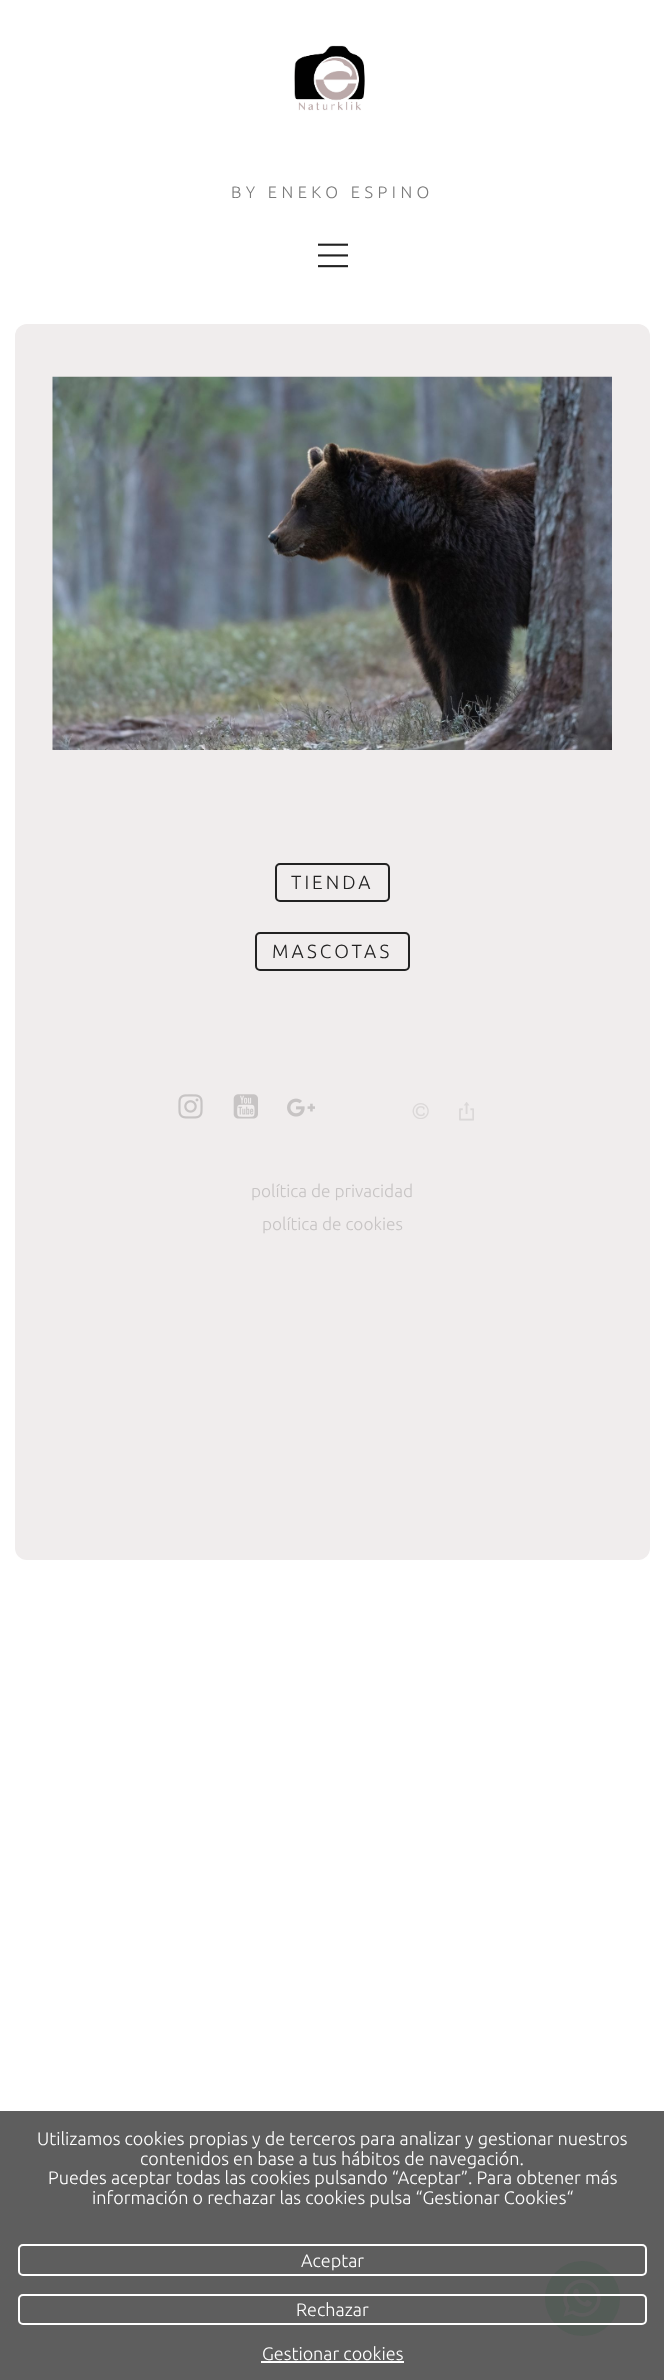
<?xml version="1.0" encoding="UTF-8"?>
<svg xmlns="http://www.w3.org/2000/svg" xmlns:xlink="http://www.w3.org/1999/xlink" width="664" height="2380">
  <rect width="100%" height="100%" fill="#ffffff" />
  <rect y="2111" width="664" height="269" fill="#5e5e5e" />
  <image x="294" y="45" width="71" height="66" xlink:href="image1.png" />
  <image x="318" y="243" width="30" height="25" xlink:href="image2.png" />
  <rect x="15" y="324" width="635" height="1236" rx="12" fill="#f0eded" />
  <image x="52" y="376" width="560" height="374" xlink:href="image3.png" />
  <rect x="276" y="864" width="113" height="37" rx="4" fill="none" stroke="#222222" stroke-width="2" />
  <rect x="256" y="933" width="153" height="37" rx="4" fill="none" stroke="#222222" stroke-width="2" />
  <image x="178" y="1094" width="25" height="25" xlink:href="image4.png" />
  <image x="233" y="1094" width="25" height="25" xlink:href="image5.png" />
  <image x="287" y="1098" width="28" height="19" xlink:href="image6.png" />
  <image x="412" y="1103" width="17" height="16" xlink:href="image7.png" />
  <image x="459" y="1102" width="15" height="19" xlink:href="image8.png" />
  <circle cx="582.5" cy="2298.5" r="37.5" fill="#545c57" />
  <rect x="19" y="2245" width="627" height="30" rx="4" fill="none" stroke="#ffffff" stroke-width="2" />
  <image x="563" y="2279" width="38" height="38" xlink:href="image9.png" />
  <rect x="19" y="2295" width="627" height="29" rx="4" fill="none" stroke="#ffffff" stroke-width="2" />
  <rect x="261" y="2361" width="143" height="2" fill="#ffffff" />
  <text x="231" y="198" style="font-family: Ubuntu; font-size: 16.5px; font-weight: 300; letter-spacing: 4.5px; fill: #7a7a7a">BY ENEKO ESPINO</text>
  <text x="291" y="889" style="font-family: Ubuntu; font-size: 19px; font-weight: 300; letter-spacing: 3px; fill: #222222">TIENDA</text>
  <text x="272" y="958" style="font-family: Ubuntu; font-size: 19px; font-weight: 300; letter-spacing: 3px; fill: #222222">MASCOTAS</text>
  <text x="251" y="1197" style="font-family: Ubuntu; font-size: 17.25px; font-weight: 300; fill: #c7c4c4">política de privacidad</text>
  <text x="262" y="1230" style="font-family: Ubuntu; font-size: 17.25px; font-weight: 300; fill: #c7c4c4">política de cookies</text>
  <text x="37" y="2145" style="font-family: Ubuntu; font-size: 18px; font-weight: 300; fill: #ffffff">Utilizamos cookies propias y de terceros para analizar y gestionar nuestros</text>
  <text x="140" y="2165" style="font-family: Ubuntu; font-size: 18px; font-weight: 300; fill: #ffffff">contenidos en base a tus hábitos de navegación.</text>
  <text x="48" y="2184" style="font-family: Ubuntu; font-size: 18px; font-weight: 300; fill: #ffffff">Puedes aceptar todas las cookies pulsando “Aceptar”. Para obtener más</text>
  <text x="92" y="2204" style="font-family: Ubuntu; font-size: 18px; font-weight: 300; fill: #ffffff">información o rechazar las cookies pulsa “Gestionar Cookies“</text>
  <text x="301" y="2267" style="font-family: Ubuntu; font-size: 18px; font-weight: 300; fill: #ffffff">Aceptar</text>
  <text x="296" y="2316" style="font-family: Ubuntu; font-size: 18px; font-weight: 300; fill: #ffffff">Rechazar</text>
  <text x="262" y="2360" style="font-family: Ubuntu; font-size: 18px; font-weight: 300; fill: #ffffff">Gestionar cookies</text>
</svg>
